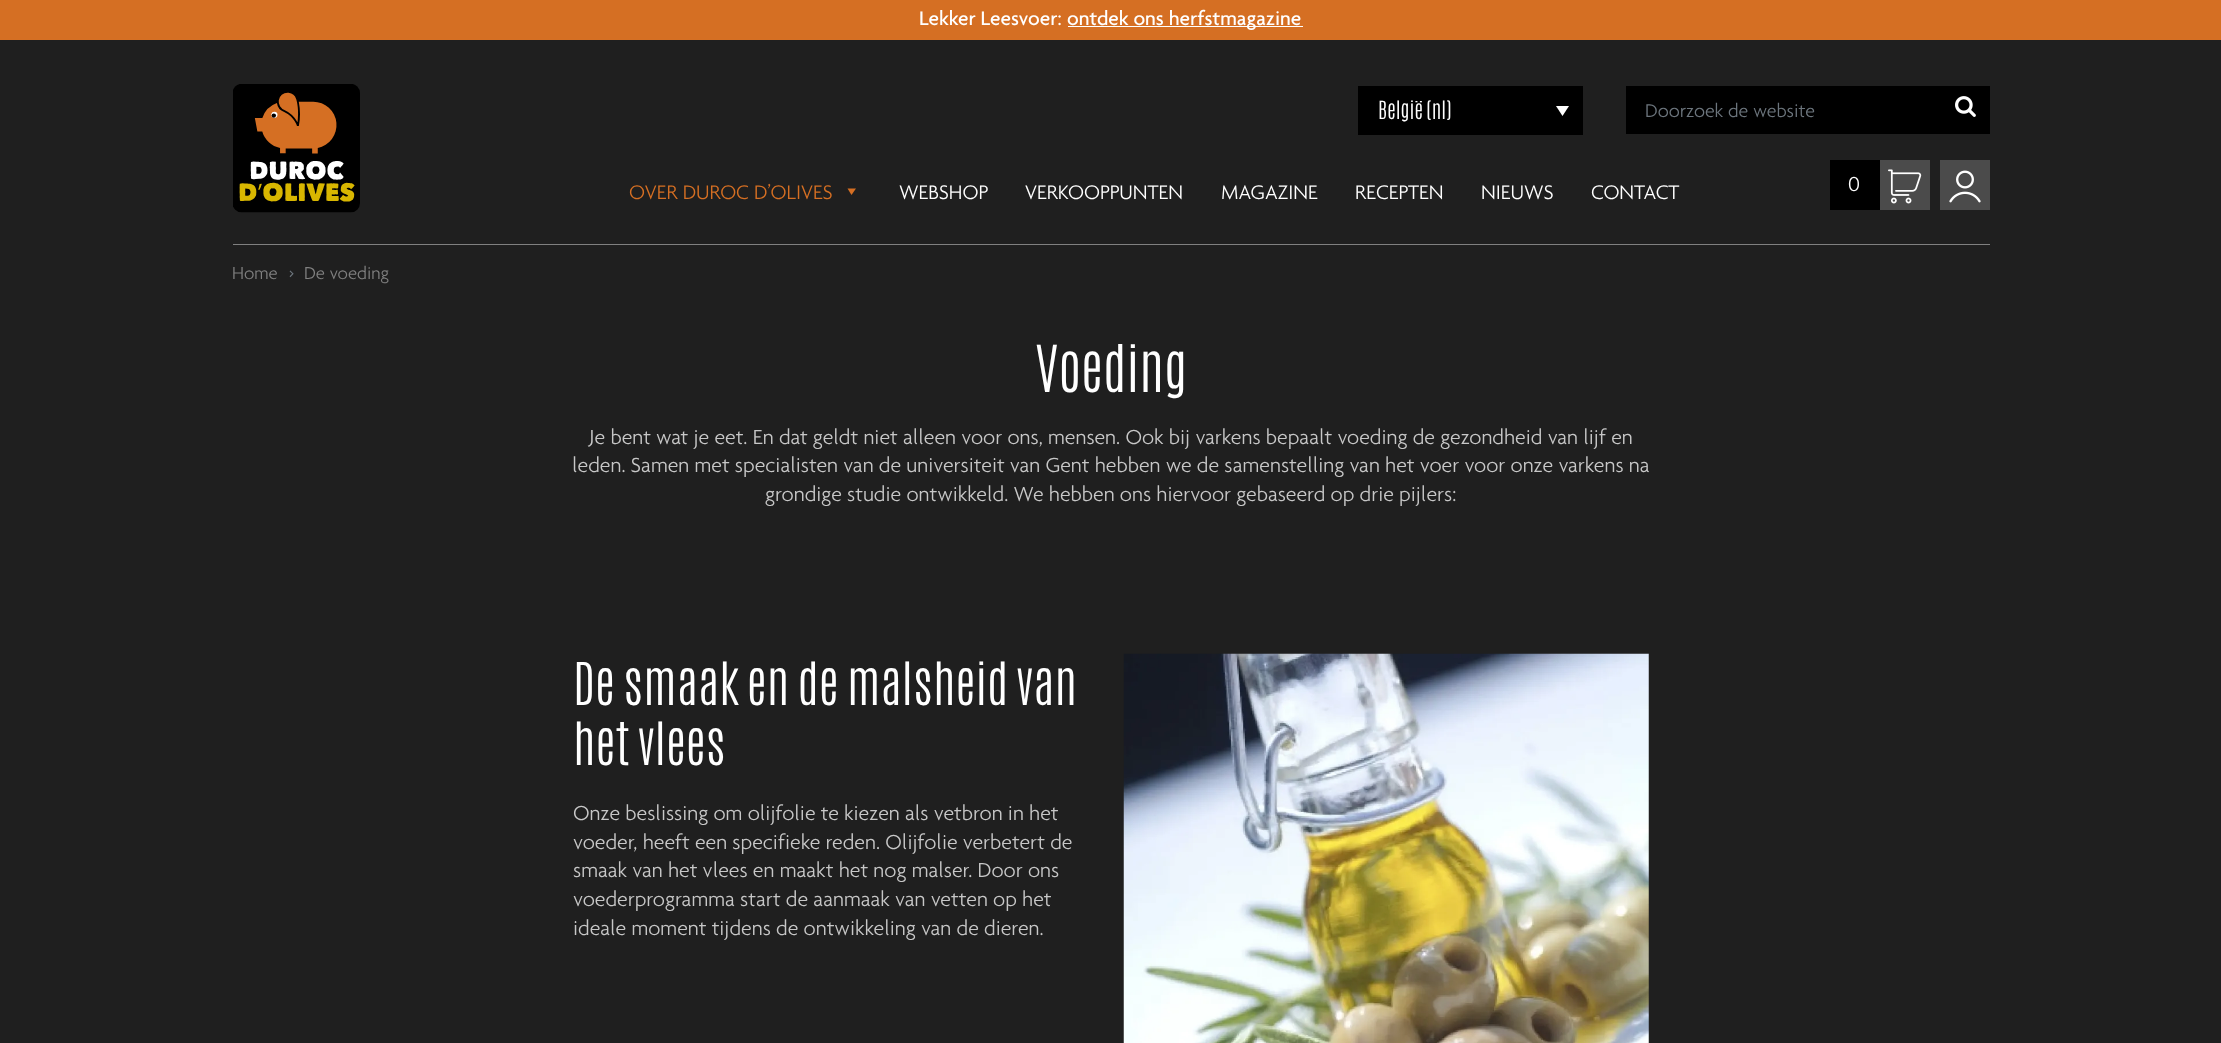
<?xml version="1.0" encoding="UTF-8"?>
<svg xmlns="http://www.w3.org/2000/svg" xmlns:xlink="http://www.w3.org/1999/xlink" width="2221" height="1043">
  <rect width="100%" height="100%" fill="#1f1f1f" />
  <rect width="2221" height="40" fill="#d56f23" />
  <rect x="1068" y="26" width="235" height="1" fill="#ffffff" />
  <image x="233" y="84" width="127" height="129" xlink:href="image1.png" />
  <rect x="1358" y="86" width="225" height="49" fill="#000000" />
  <path d="M 1556 106 h 13 l -6.5 10 z" fill="#ffffff" />
  <rect x="1626" y="86" width="364" height="48" fill="#000000" />
  <image x="1955" y="96" width="21" height="21" xlink:href="image2.png" />
  <path d="M 856 188.5 l -4.5 6.5 l -4 -6.5 z" fill="#d56f23" />
  <rect x="1830" y="160" width="50" height="50" fill="#000000" />
  <rect x="1880" y="160" width="50" height="50" fill="#4b4b4b" />
  <image x="1888" y="169" width="34" height="35" xlink:href="image3.png" />
  <rect x="1940" y="160" width="50" height="50" fill="#4b4b4b" />
  <image x="1949" y="170" width="32" height="33" xlink:href="image4.png" />
  <rect x="233" y="244" width="1757" height="1" fill="#808080" />
  <image x="1123" y="653" width="526" height="390" xlink:href="image5.png" />
  <text x="919" y="25" style="font-family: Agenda; font-size: 21.25px; font-weight: 500; fill: #ffffff">Lekker Leesvoer:</text>
  <text x="1067" y="25" style="font-family: Agenda; font-size: 21.25px; font-weight: 500; fill: #ffffff">ontdek ons herfstmagazine</text>
  <text x="1378" y="119" style="font-family: Antonio; font-size: 21.25px; font-weight: 300; fill: #ffffff">België (nl)</text>
  <text x="1645" y="117" style="font-family: Agenda; font-size: 20px; font-weight: 300; fill: #6c757d">Doorzoek de website</text>
  <text x="629" y="199" style="font-family: Agenda; font-size: 21.25px; font-weight: 300; fill: #d56f23">OVER DUROC D’OLIVES</text>
  <text x="899" y="199" style="font-family: Agenda; font-size: 21.25px; font-weight: 300; fill: #ffffff">WEBSHOP</text>
  <text x="1025" y="199" style="font-family: Agenda; font-size: 21.25px; font-weight: 300; fill: #ffffff">VERKOOPPUNTEN</text>
  <text x="1221" y="199" style="font-family: Agenda; font-size: 21.25px; font-weight: 300; fill: #ffffff">MAGAZINE</text>
  <text x="1355" y="199" style="font-family: Agenda; font-size: 21.25px; font-weight: 300; fill: #ffffff">RECEPTEN</text>
  <text x="1481" y="199" style="font-family: Agenda; font-size: 21.25px; font-weight: 300; fill: #ffffff">NIEUWS</text>
  <text x="1591" y="199" style="font-family: Agenda; font-size: 21.25px; font-weight: 300; fill: #ffffff">CONTACT</text>
  <text x="1848" y="191" style="font-family: Agenda; font-size: 22px; font-weight: 300; fill: #ffffff">0</text>
  <text x="232" y="279" style="font-family: Agenda; font-size: 18.75px; font-weight: 300; fill: #808080">Home</text>
  <text x="288" y="279" style="font-family: Agenda; font-size: 18.75px; font-weight: 300; fill: #6c757d">&gt;</text>
  <text x="304" y="279" style="font-family: Agenda; font-size: 18.75px; font-weight: 300; fill: #808080">De voeding</text>
  <text x="1035" y="392" style="font-family: Antonio; font-size: 55px; font-weight: 300; fill: #ffffff">Voeding</text>
  <text x="589" y="444" style="font-family: Agenda; font-size: 22px; font-weight: 300; fill: #c7c7c7">Je bent wat je eet. En dat geldt niet alleen voor ons, mensen. Ook bij varkens bepaalt voeding de gezondheid van lijf en</text>
  <text x="572" y="472" style="font-family: Agenda; font-size: 22px; font-weight: 300; fill: #c7c7c7">leden. Samen met specialisten van de universiteit van Gent hebben we de samenstelling van het voer voor onze varkens na</text>
  <text x="765" y="501" style="font-family: Agenda; font-size: 22px; font-weight: 300; fill: #c7c7c7">grondige studie ontwikkeld. We hebben ons hiervoor gebaseerd op drie pijlers:</text>
  <text x="573" y="705" style="font-family: Antonio; font-size: 50px; font-weight: 300; fill: #ffffff">De smaak en de malsheid van</text>
  <text x="573" y="765" style="font-family: Antonio; font-size: 50px; font-weight: 300; fill: #ffffff">het vlees</text>
  <text x="573" y="820" style="font-family: Agenda; font-size: 22px; font-weight: 300; fill: #c7c7c7">Onze beslissing om olijfolie te kiezen als vetbron in het</text>
  <text x="573" y="849" style="font-family: Agenda; font-size: 22px; font-weight: 300; fill: #c7c7c7">voeder, heeft een specifieke reden. Olijfolie verbetert de</text>
  <text x="573" y="877" style="font-family: Agenda; font-size: 22px; font-weight: 300; fill: #c7c7c7">smaak van het vlees en maakt het nog malser. Door ons</text>
  <text x="573" y="906" style="font-family: Agenda; font-size: 22px; font-weight: 300; fill: #c7c7c7">voederprogramma start de aanmaak van vetten op het</text>
  <text x="573" y="935" style="font-family: Agenda; font-size: 22px; font-weight: 300; fill: #c7c7c7">ideale moment tijdens de ontwikkeling van de dieren.</text>
</svg>
